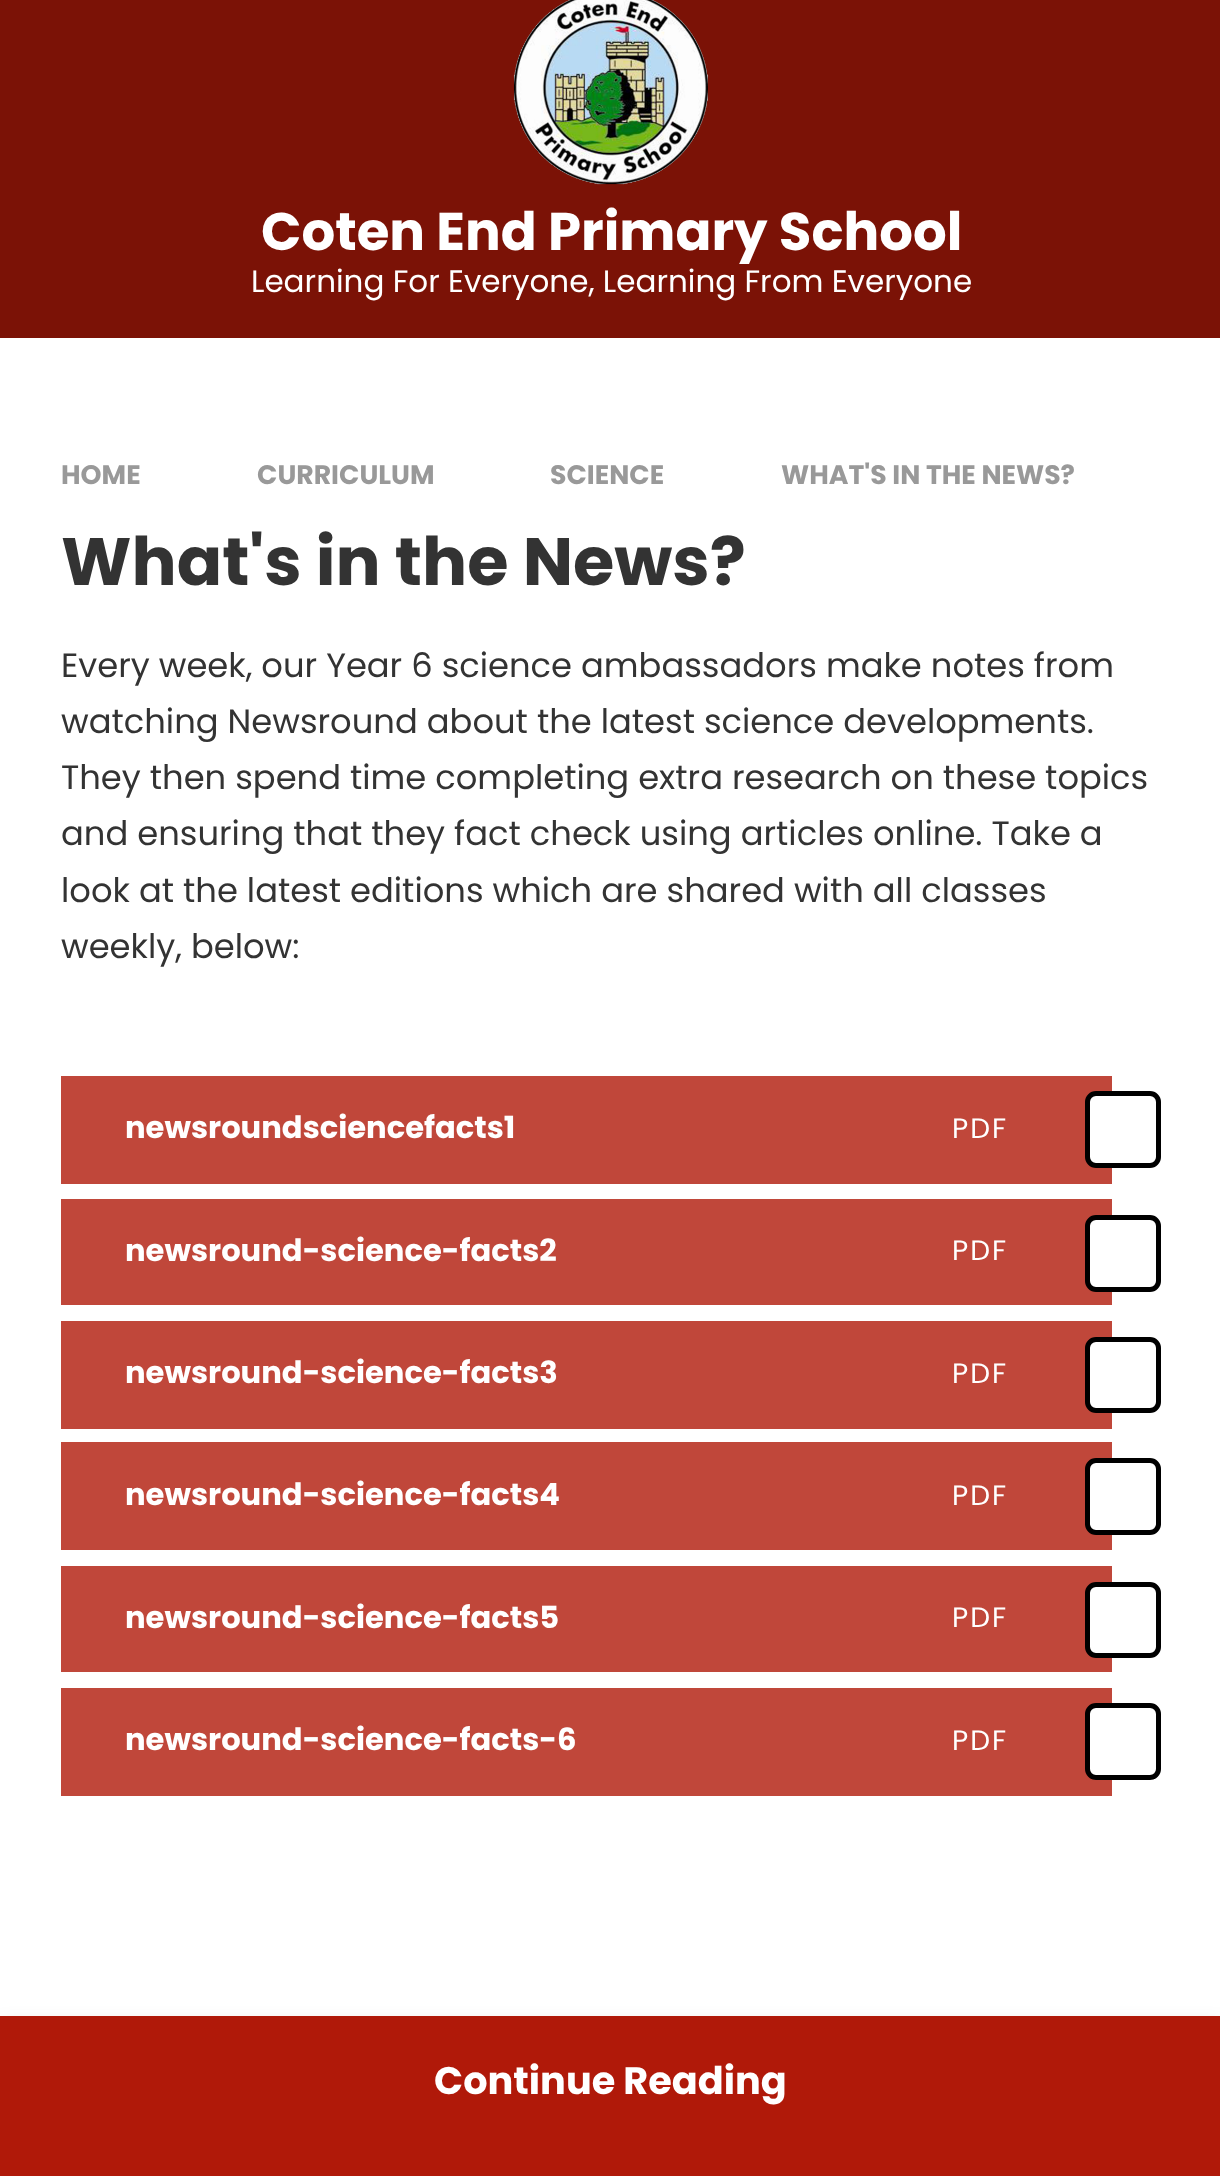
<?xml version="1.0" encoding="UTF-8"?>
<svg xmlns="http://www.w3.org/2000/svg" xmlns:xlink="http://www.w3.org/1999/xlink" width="1220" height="2176">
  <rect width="100%" height="100%" fill="#ffffff" />
  <rect width="1220" height="338" fill="#7b1206" />
  <image x="513" y="0" width="195" height="185" xlink:href="image1.png" />
  <rect x="61" y="1076" width="1051" height="108" fill="#c0473a" />
  <rect x="1087.5" y="1093.5" width="71" height="72" rx="8.5" fill="#ffffff" stroke="#000000" stroke-width="5" />
  <rect x="61" y="1199" width="1051" height="106" fill="#c0473a" />
  <rect x="1087.5" y="1217.5" width="71" height="72" rx="8.5" fill="#ffffff" stroke="#000000" stroke-width="5" />
  <rect x="61" y="1321" width="1051" height="108" fill="#c0473a" />
  <rect x="1087.5" y="1339.5" width="71" height="71" rx="8.5" fill="#ffffff" stroke="#000000" stroke-width="5" />
  <rect x="61" y="1442" width="1051" height="108" fill="#c0473a" />
  <rect x="1087.5" y="1460.5" width="71" height="72" rx="8.5" fill="#ffffff" stroke="#000000" stroke-width="5" />
  <rect x="61" y="1566" width="1051" height="106" fill="#c0473a" />
  <rect x="1087.5" y="1584.5" width="71" height="71" rx="8.5" fill="#ffffff" stroke="#000000" stroke-width="5" />
  <rect x="61" y="1688" width="1051" height="108" fill="#c0473a" />
  <rect x="1087.5" y="1705.5" width="71" height="72" rx="8.5" fill="#ffffff" stroke="#000000" stroke-width="5" />
  <rect y="2025" width="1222" height="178" fill="#333333" fill-opacity="0.2" filter="blur(9px)" />
  <rect y="2016" width="1220" height="160" fill="#b01909" />
  <text x="261" y="250" style="font-family: Poppins; font-size: 53px; font-weight: bold; fill: #ffffff">Coten End Primary School</text>
  <text x="251" y="292" style="font-family: Poppins; font-size: 31px; fill: #ffffff">Learning For Everyone, Learning From Everyone</text>
  <text x="61" y="484" style="font-family: Poppins; font-size: 26.75px; font-weight: bold; fill: #999999">HOME</text>
  <text x="257" y="484" style="font-family: Poppins; font-size: 26.75px; font-weight: bold; fill: #999999">CURRICULUM</text>
  <text x="550" y="484" style="font-family: Poppins; font-size: 26.75px; font-weight: bold; fill: #999999">SCIENCE</text>
  <text x="781" y="484" style="font-family: Poppins; font-size: 26.75px; font-weight: bold; fill: #999999">WHAT'S IN THE NEWS?</text>
  <text x="61" y="585" style="font-family: Poppins; font-size: 67px; font-weight: bold; fill: #333333">What's in the News?</text>
  <text x="61" y="677" style="font-family: Poppins; font-size: 33.75px; fill: #333333">Every week, our Year 6 science ambassadors make notes from</text>
  <text x="61" y="733" style="font-family: Poppins; font-size: 33.75px; fill: #333333">watching Newsround about the latest science developments.</text>
  <text x="61" y="789" style="font-family: Poppins; font-size: 33.75px; fill: #333333">They then spend time completing extra research on these topics</text>
  <text x="61" y="845" style="font-family: Poppins; font-size: 33.75px; fill: #333333">and ensuring that they fact check using articles online. Take a</text>
  <text x="61" y="902" style="font-family: Poppins; font-size: 33.75px; fill: #333333">look at the latest editions which are shared with all classes</text>
  <text x="61" y="958" style="font-family: Poppins; font-size: 33.75px; fill: #333333">weekly, below:</text>
  <text x="125" y="1138" style="font-family: Poppins; font-size: 30.6px; font-weight: bold; fill: #ffffff">newsroundsciencefacts1</text>
  <text x="952" y="1138" style="font-family: Poppins; font-size: 28px; letter-spacing: 2px; fill: #ffffff">PDF</text>
  <text x="125" y="1261" style="font-family: Poppins; font-size: 30.6px; font-weight: bold; fill: #ffffff">newsround-science-facts2</text>
  <text x="952" y="1260" style="font-family: Poppins; font-size: 28px; letter-spacing: 2px; fill: #ffffff">PDF</text>
  <text x="125" y="1383" style="font-family: Poppins; font-size: 30.6px; font-weight: bold; fill: #ffffff">newsround-science-facts3</text>
  <text x="952" y="1383" style="font-family: Poppins; font-size: 28px; letter-spacing: 2px; fill: #ffffff">PDF</text>
  <text x="125" y="1505" style="font-family: Poppins; font-size: 30.6px; font-weight: bold; fill: #ffffff">newsround-science-facts4</text>
  <text x="952" y="1505" style="font-family: Poppins; font-size: 28px; letter-spacing: 2px; fill: #ffffff">PDF</text>
  <text x="125" y="1628" style="font-family: Poppins; font-size: 30.6px; font-weight: bold; fill: #ffffff">newsround-science-facts5</text>
  <text x="952" y="1627" style="font-family: Poppins; font-size: 28px; letter-spacing: 2px; fill: #ffffff">PDF</text>
  <text x="125" y="1750" style="font-family: Poppins; font-size: 30.6px; font-weight: bold; fill: #ffffff">newsround-science-facts-6</text>
  <text x="952" y="1750" style="font-family: Poppins; font-size: 28px; letter-spacing: 2px; fill: #ffffff">PDF</text>
  <text x="434" y="2094" style="font-family: Poppins; font-size: 38.25px; font-weight: bold; fill: #ffffff">Continue Reading</text>
</svg>
